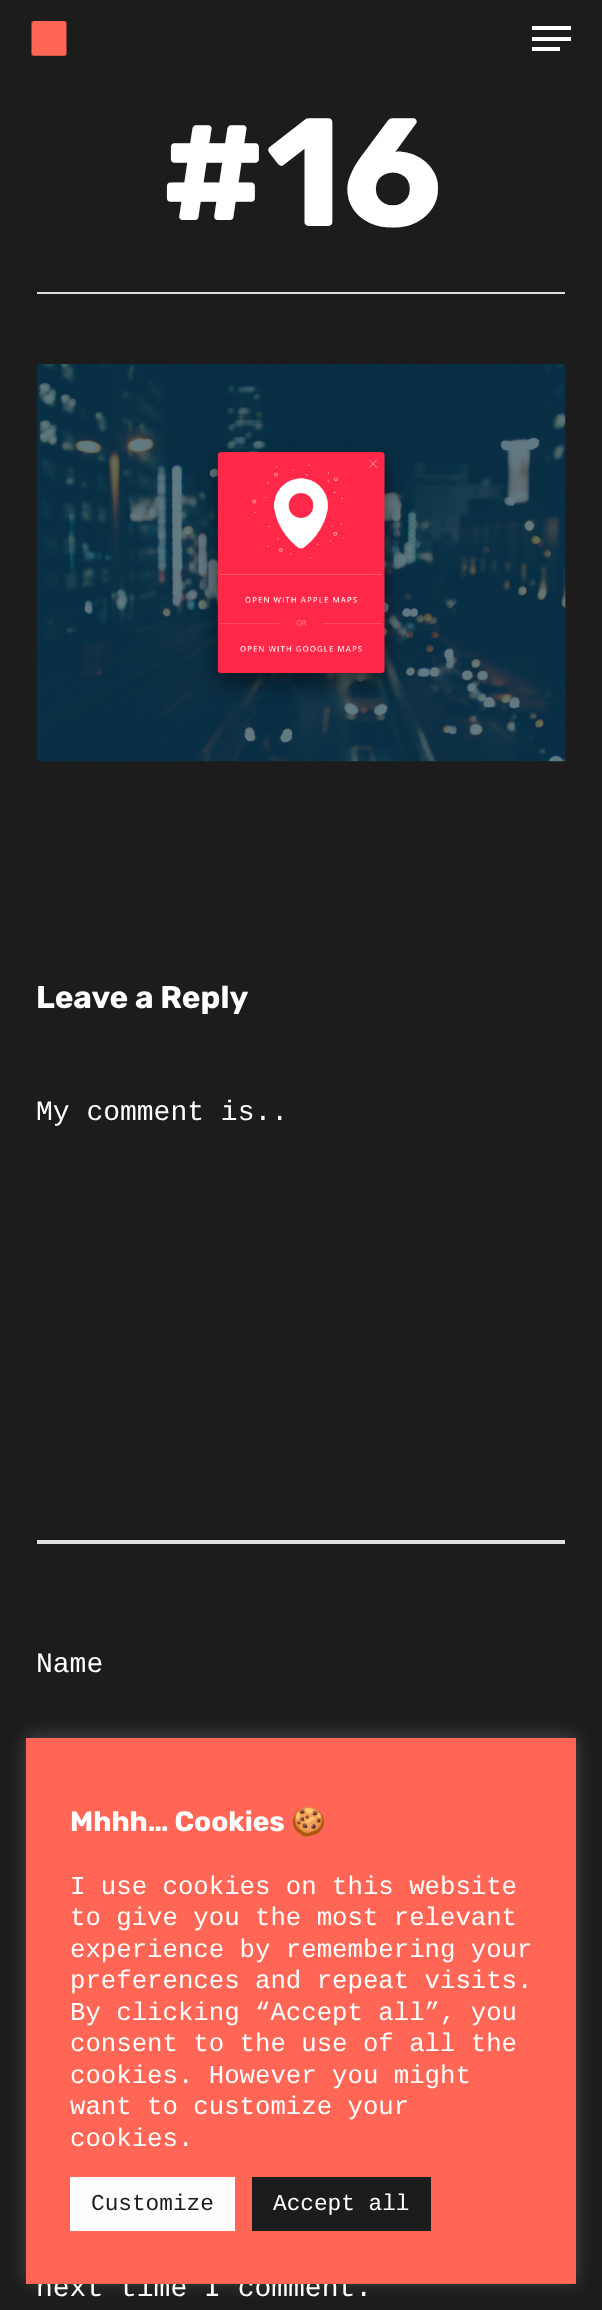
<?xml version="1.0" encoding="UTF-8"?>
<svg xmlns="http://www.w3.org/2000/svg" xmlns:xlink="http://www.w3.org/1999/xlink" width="602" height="2310">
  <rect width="100%" height="100%" fill="#1c1c1c" />
  <image x="31" y="21" width="36" height="35" xlink:href="image1.png" />
  <rect x="532" y="26" width="39" height="4" fill="#ffffff" />
  <rect x="532" y="47" width="28" height="4" fill="#ffffff" />
  <rect x="532" y="37" width="39" height="4" fill="#ffffff" />
  <rect x="37" y="292" width="528" height="2" fill="#dddddd" />
  <image x="36" y="364" width="530" height="398" xlink:href="image2.png" />
  <rect x="37" y="1540" width="528" height="4" fill="#e0e0e0" />
  <rect x="26" y="1736" width="550" height="546" fill="#acabab" fill-opacity="0.3" filter="blur(9px)" />
  <text x="160" y="226" style="font-family: Rubik; font-size: 154px; font-weight: bold; fill: #ffffff">#16</text>
  <text x="36" y="1008" style="font-family: Rubik; font-size: 31.5px; font-weight: bold; fill: #ffffff">Leave a Reply</text>
  <text x="36" y="1120" style="font-family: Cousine; font-size: 28px; fill: #ffffff">My comment is..</text>
  <text x="36" y="1672" style="font-family: Cousine; font-size: 28px; fill: #ffffff">Name</text>
  <text x="36" y="2296" style="font-family: Cousine; font-size: 28px; fill: #ffffff">next time I comment.</text>
  <rect x="26" y="1738" width="550" height="546" fill="#ff6655" />
  <text x="70" y="1831" style="font-family: Rubik; font-size: 28px; font-weight: bold; fill: #ffffff">Mhhh… Cookies</text>
  <text x="291" y="1831" style="font-family: Noto Color Emoji; font-size: 28px; font-weight: bold; fill: #ffffff">🍪</text>
  <text x="70" y="1894" style="font-family: Cousine; font-size: 25.7px; fill: #ffffff">I use cookies on this website</text>
  <text x="70" y="1925" style="font-family: Cousine; font-size: 25.7px; fill: #ffffff">to give you the most relevant</text>
  <text x="70" y="1957" style="font-family: Cousine; font-size: 25.7px; fill: #ffffff">experience by remembering your</text>
  <text x="70" y="1988" style="font-family: Cousine; font-size: 25.7px; fill: #ffffff">preferences and repeat visits.</text>
  <text x="70" y="2020" style="font-family: Cousine; font-size: 25.7px; fill: #ffffff">By clicking “Accept all”, you</text>
  <text x="70" y="2051" style="font-family: Cousine; font-size: 25.7px; fill: #ffffff">consent to the use of all the</text>
  <text x="70" y="2083" style="font-family: Cousine; font-size: 25.7px; fill: #ffffff">cookies. However you might</text>
  <text x="70" y="2114" style="font-family: Cousine; font-size: 25.7px; fill: #ffffff">want to customize your</text>
  <text x="70" y="2146" style="font-family: Cousine; font-size: 25.7px; fill: #ffffff">cookies.</text>
  <rect x="70" y="2177" width="165" height="54" fill="#fffcfc" />
  <text x="91" y="2210" style="font-family: Cousine; font-size: 22.75px; fill: #1c1c1c">Customize</text>
  <rect x="252" y="2177" width="179" height="54" fill="#1c1c1c" />
  <text x="273" y="2210" style="font-family: Cousine; font-size: 22.75px; fill: #ffffff">Accept all</text>
</svg>
